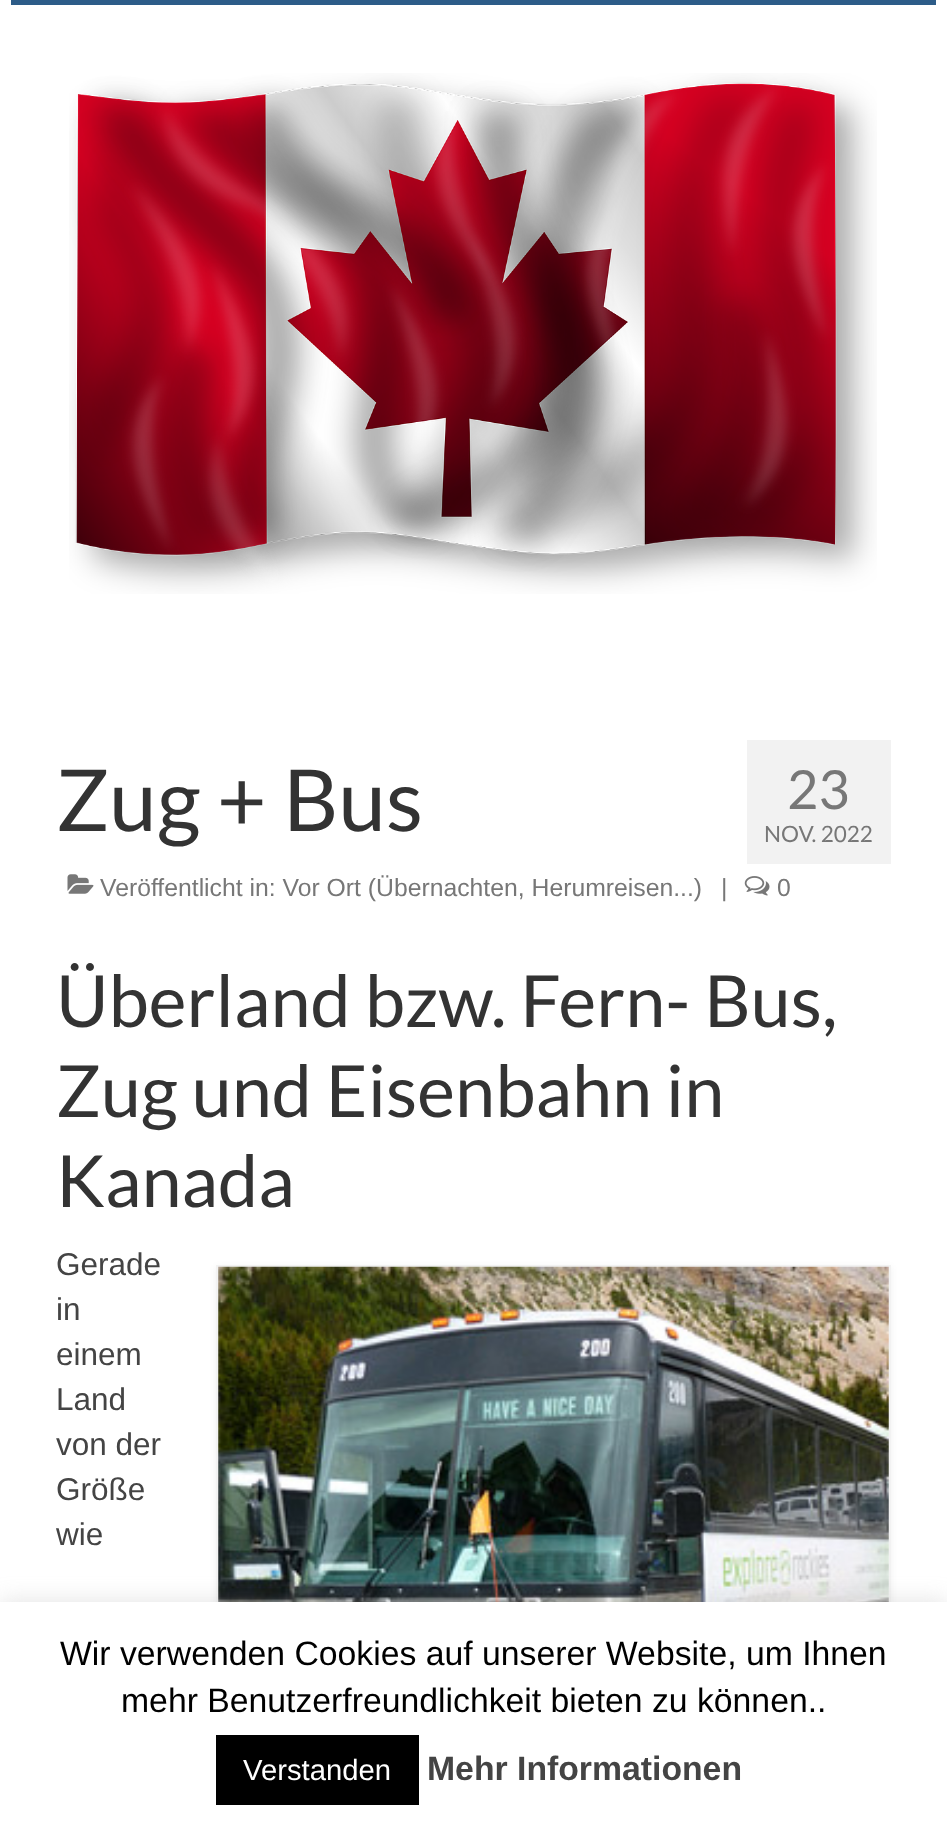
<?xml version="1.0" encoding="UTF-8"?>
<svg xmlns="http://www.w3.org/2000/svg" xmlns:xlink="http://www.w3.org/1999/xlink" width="947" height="1830">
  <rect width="100%" height="100%" fill="#ffffff" />
  <rect x="11" width="925" height="5" fill="#2d5c88" />
  <image x="69" y="73" width="808" height="521" xlink:href="image1.png" />
  <image x="67" y="874" width="27" height="20" xlink:href="image2.png" />
  <image x="744" y="876" width="26" height="20" xlink:href="image3.png" />
  <rect x="747" y="740" width="144" height="124" fill="#f2f2f2" />
  <rect x="216" y="1267" width="675" height="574" fill="#000000" fill-opacity="0.06" filter="blur(3.5px)" />
  <rect x="217" y="1266" width="673" height="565" fill="none" stroke="#f2f2f2" stroke-width="2" />
  <image x="218" y="1266" width="671" height="336" xlink:href="image4.png" />
  <rect y="1600" width="947" height="229" fill="#acabab" fill-opacity="0.3" filter="blur(11px)" />
  <rect y="1602" width="947" height="228" fill="#ffffff" />
  <rect x="216" y="1735" width="203" height="70" fill="#000000" />
  <text x="56" y="831" style="font-family: Lato; font-size: 85.5px; fill: #333333">Zug + Bus</text>
  <text x="100" y="896" style="font-family: Liberation Sans; font-size: 24.75px; fill: #777777">Veröffentlicht in: Vor Ort (Übernachten, Herumreisen...)</text>
  <text x="721" y="896" style="font-family: Liberation Sans; font-size: 24.75px; fill: #777777">|</text>
  <text x="777" y="896" style="font-family: Liberation Sans; font-size: 24.75px; fill: #777777">0</text>
  <text x="787" y="809" style="font-family: Lato; font-size: 54px; fill: #777777">23</text>
  <text x="764" y="842" style="font-family: Lato; font-size: 22.5px; fill: #777777">NOV. 2022</text>
  <text x="56" y="1027" style="font-family: Lato; font-size: 72px; fill: #333333">Überland bzw. Fern- Bus,</text>
  <text x="56" y="1117" style="font-family: Lato; font-size: 72px; fill: #333333">Zug und Eisenbahn in</text>
  <text x="56" y="1207" style="font-family: Lato; font-size: 72px; fill: #333333">Kanada</text>
  <text x="56" y="1275" style="font-family: Liberation Sans; font-size: 31.5px; fill: #444444">Gerade</text>
  <text x="56" y="1320" style="font-family: Liberation Sans; font-size: 31.5px; fill: #444444">in</text>
  <text x="56" y="1365" style="font-family: Liberation Sans; font-size: 31.5px; fill: #444444">einem</text>
  <text x="56" y="1410" style="font-family: Liberation Sans; font-size: 31.5px; fill: #444444">Land</text>
  <text x="56" y="1455" style="font-family: Liberation Sans; font-size: 31.5px; fill: #444444">von der</text>
  <text x="56" y="1500" style="font-family: Liberation Sans; font-size: 31.5px; fill: #444444">Größe</text>
  <text x="56" y="1545" style="font-family: Liberation Sans; font-size: 31.5px; fill: #444444">wie</text>
  <text x="60" y="1665" style="font-family: Liberation Sans; font-size: 33.75px; fill: #000000">Wir verwenden Cookies auf unserer Website, um Ihnen</text>
  <text x="121" y="1712" style="font-family: Liberation Sans; font-size: 33.75px; fill: #000000">mehr Benutzerfreundlichkeit bieten zu können..</text>
  <text x="243" y="1780" style="font-family: Liberation Sans; font-size: 29.25px; fill: #ffffff">Verstanden</text>
  <text x="427" y="1780" style="font-family: Liberation Sans; font-size: 33.75px; font-weight: bold; fill: #444444">Mehr Informationen</text>
</svg>
